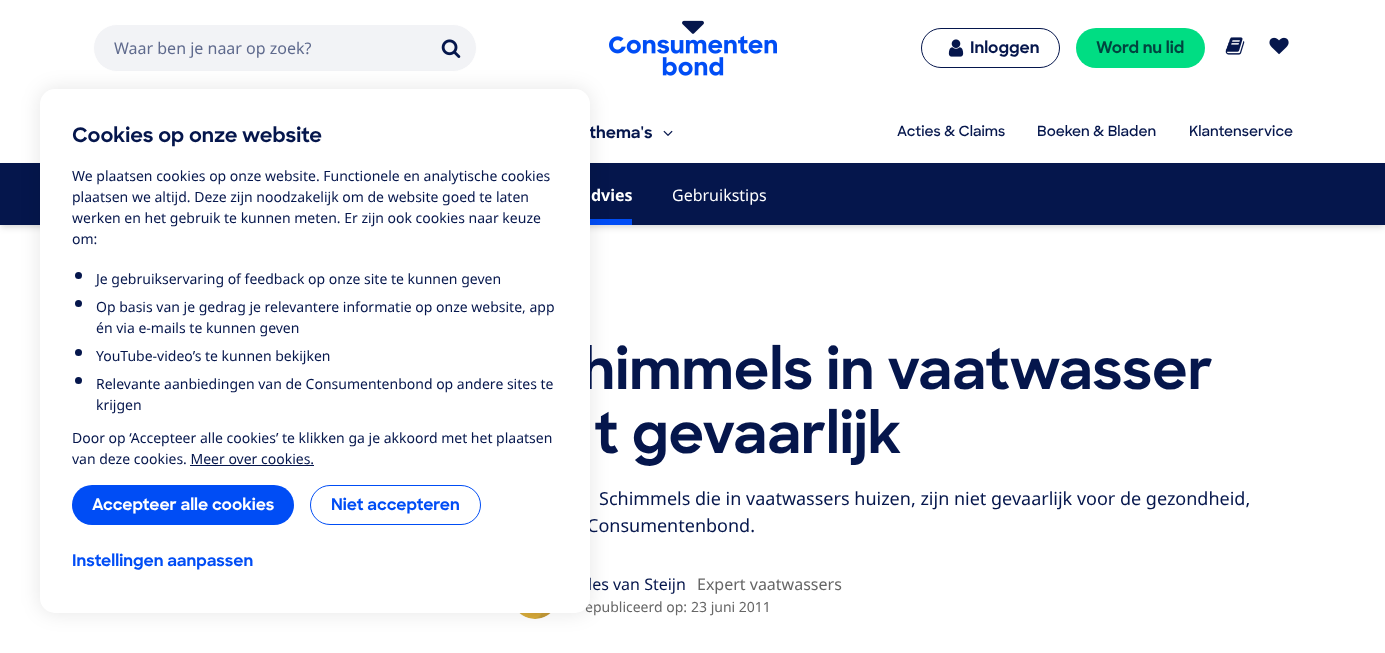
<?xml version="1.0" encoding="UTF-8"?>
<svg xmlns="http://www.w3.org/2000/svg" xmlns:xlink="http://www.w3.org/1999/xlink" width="1385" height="653">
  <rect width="100%" height="100%" fill="#ffffff" />
  <rect x="93.5" y="24.5" width="383" height="47" rx="23.5" fill="#f2f3f6" stroke="#ffffff" />
  <image x="441" y="39" width="20" height="19" xlink:href="image1.png" />
  <image x="609" y="20" width="168" height="56" xlink:href="image2.png" />
  <rect x="921.5" y="28.5" width="138" height="39" rx="19.5" fill="none" stroke="#05164c" />
  <image x="948" y="39" width="16" height="18" xlink:href="image3.png" />
  <rect x="1076" y="28" width="129" height="40" rx="20" fill="#00dd83" />
  <image x="1225" y="37" width="20" height="18" xlink:href="image4.png" />
  <image x="1269" y="37" width="20" height="18" xlink:href="image5.png" />
  <image x="663" y="130" width="10" height="6" xlink:href="image6.png" />
  <rect x="1" y="166" width="1383" height="60" fill="#000000" fill-opacity="0.06" filter="blur(2px)" />
  <rect x="1" y="168" width="1383" height="60" fill="#000000" fill-opacity="0.1" filter="blur(3px)" />
  <rect y="163" width="1385" height="62" fill="#05164c" />
  <rect x="590" y="219" width="42" height="6" fill="#004df5" />
  <image x="519" y="613" width="32" height="6" xlink:href="image7.png" />
  <rect x="40" y="89" width="550" height="524" rx="15" fill="#000000" fill-opacity="0.1" filter="blur(10px)" />
  <text x="114" y="54" style="font-family: Noto Sans; font-size: 16px; fill: #5f6a8d">Waar ben je naar op zoek?</text>
  <text x="970" y="53" style="font-family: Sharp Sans; font-size: 16px; font-weight: bold; fill: #05164c">Inloggen</text>
  <text x="1096" y="53" style="font-family: Sharp Sans; font-size: 16px; font-weight: bold; fill: #00443f">Word nu lid</text>
  <text x="589" y="138" style="font-family: Sharp Sans; font-size: 16px; font-weight: bold; fill: #05164c">thema's</text>
  <text x="897" y="136" style="font-family: Sharp Sans; font-size: 14px; font-weight: 600; fill: #05164c">Acties &amp; Claims</text>
  <text x="1037" y="136" style="font-family: Sharp Sans; font-size: 14px; font-weight: 600; fill: #05164c">Boeken &amp; Bladen</text>
  <text x="1189" y="136" style="font-family: Sharp Sans; font-size: 14px; font-weight: 600; fill: #05164c">Klantenservice</text>
  <text x="591" y="201" style="font-family: Noto Sans; font-size: 16px; font-weight: bold; fill: #ffffff">dvies</text>
  <text x="672" y="201" style="font-family: Noto Sans; font-size: 16px; fill: #ffffff">Gebruikstips</text>
  <text x="581" y="389" style="font-family: Sharp Sans; font-size: 56px; font-weight: bold; fill: #05164c">himmels in vaatwasser</text>
  <text x="594" y="453" style="font-family: Sharp Sans; font-size: 56px; font-weight: bold; fill: #05164c">t gevaarlijk</text>
  <text x="599" y="505" style="font-family: Noto Sans; font-size: 18px; fill: #05164c">Schimmels die in vaatwassers huizen, zijn niet gevaarlijk voor de gezondheid,</text>
  <text x="587" y="532" style="font-family: Noto Sans; font-size: 18px; fill: #05164c">Consumentenbond.</text>
  <text x="588" y="590" style="font-family: Noto Sans; font-size: 16px; fill: #05164c">les van Steijn</text>
  <text x="697" y="590" style="font-family: Noto Sans; font-size: 16px; fill: #666666">Expert vaatwassers</text>
  <text x="585" y="612" style="font-family: Noto Sans; font-size: 14px; fill: #666666">epubliceerd op:</text>
  <rect x="40" y="89" width="550" height="524" rx="15" fill="#ffffff" />
  <text x="72" y="566" style="font-family: Sharp Sans; font-size: 16px; font-weight: bold; fill: #004df5">Instellingen aanpassen</text>
  <rect x="310.5" y="485.5" width="170" height="39" rx="19.5" fill="none" stroke="#004df5" />
  <text x="331" y="510" style="font-family: Sharp Sans; font-size: 16px; font-weight: bold; fill: #004df5">Niet accepteren</text>
  <rect x="72" y="485" width="222" height="40" rx="20" fill="#004df5" />
  <text x="92" y="510" style="font-family: Sharp Sans; font-size: 16px; font-weight: bold; fill: #ffffff">Accepteer alle cookies</text>
  <rect x="190" y="465" width="124" height="1" fill="#05164c" />
  <text x="72" y="464" style="font-family: Noto Sans; font-size: 14px; fill: #05164c">van deze cookies. Meer over cookies.</text>
  <text x="72" y="443" style="font-family: Noto Sans; font-size: 14px; fill: #05164c">Door op ‘Accepteer alle cookies’ te klikken ga je akkoord met het plaatsen</text>
  <text x="96" y="410" style="font-family: Noto Sans; font-size: 14px; fill: #05164c">krijgen</text>
  <text x="96" y="389" style="font-family: Noto Sans; font-size: 14px; fill: #05164c">Relevante aanbiedingen van de Consumentenbond op andere sites te</text>
  <circle cx="78.5" cy="380.5" r="3.5" fill="#05164c" />
  <text x="96" y="361" style="font-family: Noto Sans; font-size: 14px; fill: #05164c">YouTube-video’s te kunnen bekijken</text>
  <circle cx="78.5" cy="352.5" r="3.5" fill="#05164c" />
  <text x="96" y="333" style="font-family: Noto Sans; font-size: 14px; fill: #05164c">én via e-mails te kunnen geven</text>
  <text x="96" y="312" style="font-family: Noto Sans; font-size: 14px; fill: #05164c">Op basis van je gedrag je relevantere informatie op onze website, app</text>
  <circle cx="78.5" cy="303.5" r="3.5" fill="#05164c" />
  <text x="96" y="284" style="font-family: Noto Sans; font-size: 14px; fill: #05164c">Je gebruikservaring of feedback op onze site te kunnen geven</text>
  <circle cx="78.5" cy="275.5" r="3.5" fill="#05164c" />
  <text x="72" y="244" style="font-family: Noto Sans; font-size: 14px; fill: #05164c">om:</text>
  <text x="72" y="223" style="font-family: Noto Sans; font-size: 14px; fill: #05164c">werken en het gebruik te kunnen meten. Er zijn ook cookies naar keuze</text>
  <text x="72" y="202" style="font-family: Noto Sans; font-size: 14px; fill: #05164c">plaatsen we altijd. Deze zijn noodzakelijk om de website goed te laten</text>
  <text x="72" y="181" style="font-family: Noto Sans; font-size: 14px; fill: #05164c">We plaatsen cookies op onze website. Functionele en analytische cookies</text>
  <text x="72" y="142" style="font-family: Sharp Sans; font-size: 20px; font-weight: bold; fill: #05164c">Cookies op onze website</text>
  <text x="691" y="612" style="font-family: Noto Sans; font-size: 14px; fill: #666666">23 juni 2011</text>
</svg>
